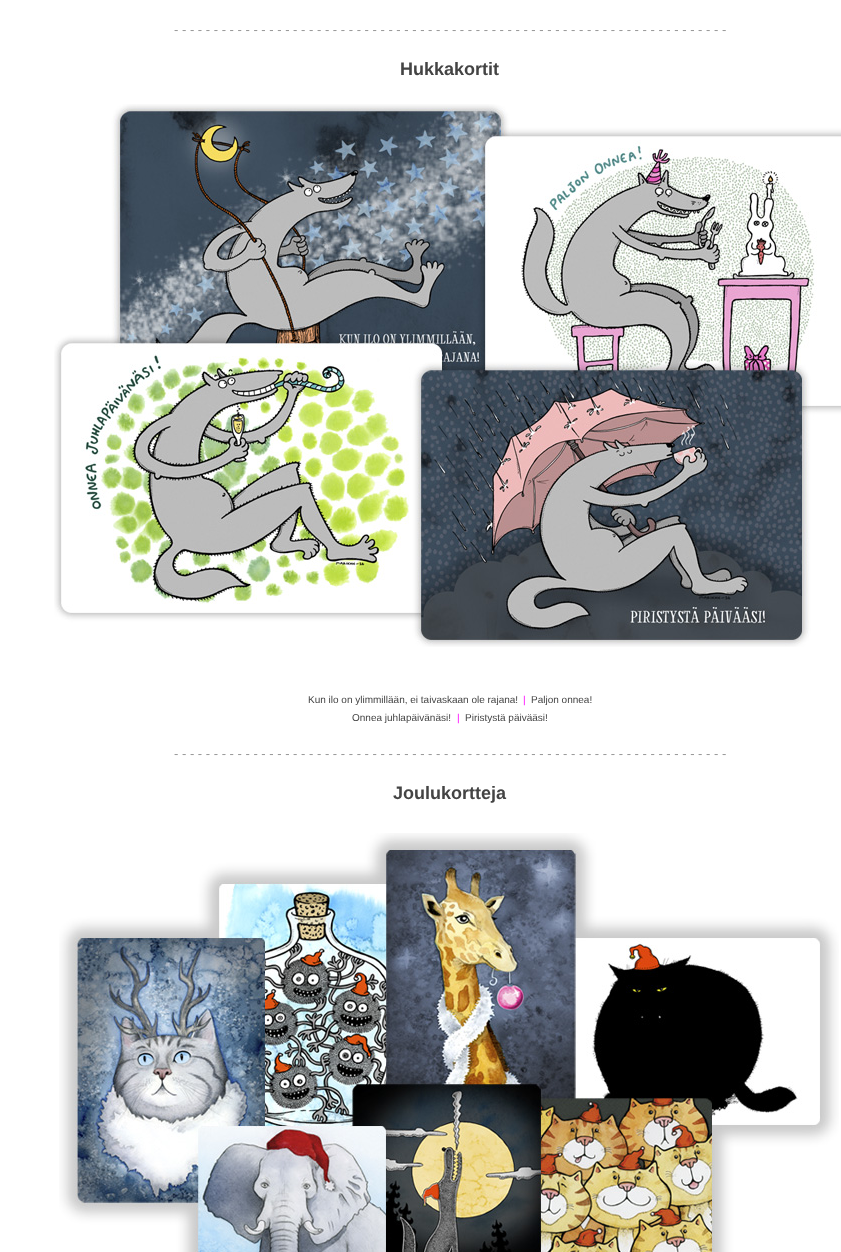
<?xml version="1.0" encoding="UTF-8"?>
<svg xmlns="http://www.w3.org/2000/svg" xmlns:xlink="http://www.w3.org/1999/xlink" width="841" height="1252">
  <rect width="100%" height="100%" fill="#ffffff" />
  <image x="54" y="104" width="787" height="543" xlink:href="image1.png" />
  <image x="59" y="833" width="780" height="419" xlink:href="image2.png" />
  <text x="174" y="34" style="font-family: Liberation Sans; font-size: 13px; fill: #999999">- - - - - - - - - - - - - - - - - - - - - - - - - - - - - - - - - - - - - - - - - - - - - - - - - - - - - - - - - - - - - - - - - - - - - -</text>
  <text x="400" y="75" style="font-family: Liberation Sans; font-size: 18px; font-weight: bold; fill: #444444">Hukkakortit</text>
  <text x="308" y="703" style="font-family: Liberation Sans; font-size: 10px; fill: #444444">Kun ilo on ylimmillään, ei taivaskaan ole rajana!</text>
  <text x="523" y="703" style="font-family: Liberation Sans; font-size: 10px; fill: #ff00ff">|</text>
  <text x="531" y="703" style="font-family: Liberation Sans; font-size: 10px; fill: #444444">Paljon onnea!</text>
  <text x="352" y="721" style="font-family: Liberation Sans; font-size: 10px; fill: #444444">Onnea juhlapäivänäsi!</text>
  <text x="457" y="721" style="font-family: Liberation Sans; font-size: 10px; fill: #ff00ff">|</text>
  <text x="465" y="721" style="font-family: Liberation Sans; font-size: 10px; fill: #444444">Piristystä päivääsi!</text>
  <text x="174" y="758" style="font-family: Liberation Sans; font-size: 13px; fill: #999999">- - - - - - - - - - - - - - - - - - - - - - - - - - - - - - - - - - - - - - - - - - - - - - - - - - - - - - - - - - - - - - - - - - - - - -</text>
  <text x="393" y="799" style="font-family: Liberation Sans; font-size: 18px; font-weight: bold; fill: #444444">Joulukortteja</text>
</svg>
